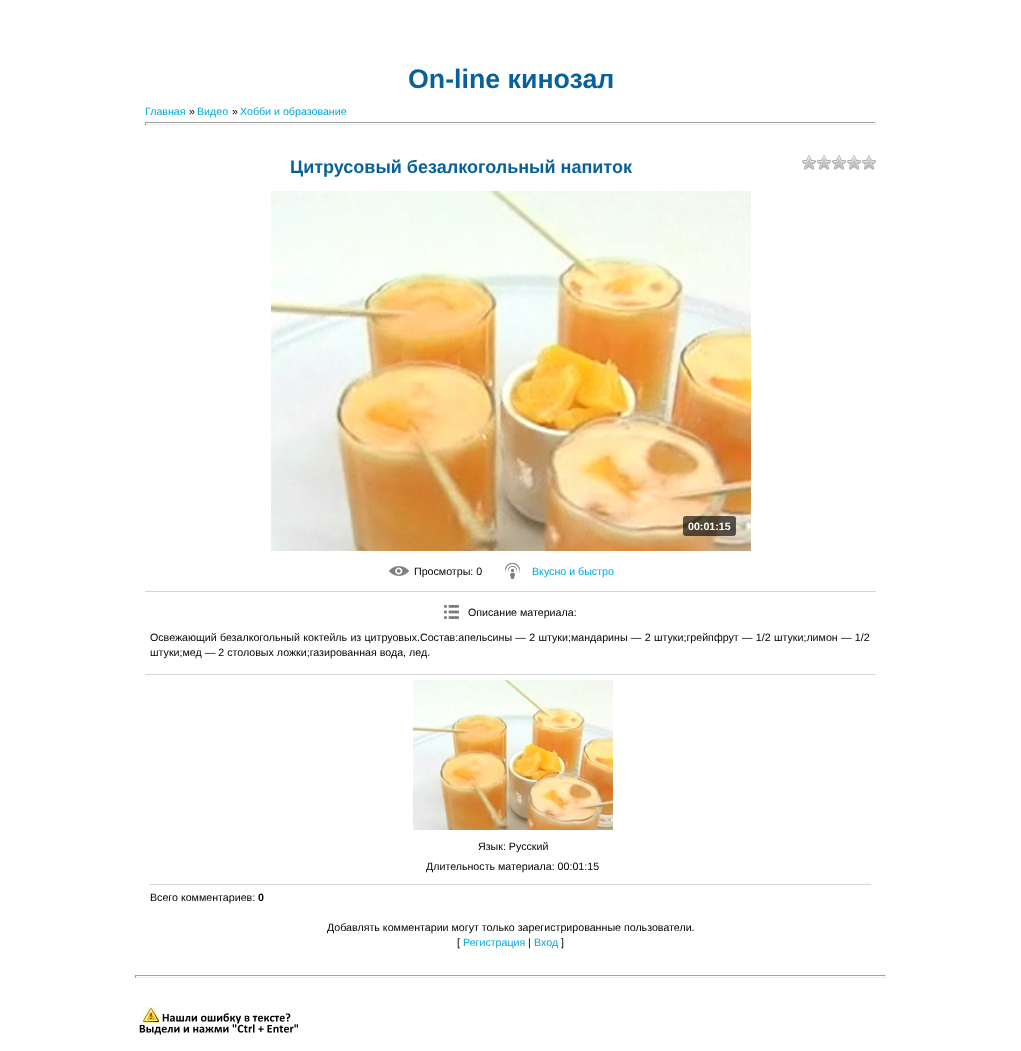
<?xml version="1.0" encoding="UTF-8"?>
<svg xmlns="http://www.w3.org/2000/svg" xmlns:xlink="http://www.w3.org/1999/xlink" width="1021" height="1051">
  <rect width="100%" height="100%" fill="#ffffff" />
  <rect x="145" y="122" width="731" height="1" fill="#9f9f9f" />
  <rect x="875" y="122" width="1" height="3" fill="#eeeeee" />
  <rect x="145" y="124" width="731" height="1" fill="#eeeeee" />
  <rect x="145" y="122" width="1" height="3" fill="#9f9f9f" />
  <image x="802" y="155" width="74" height="15" xlink:href="image1.png" />
  <image x="271" y="191" width="480" height="360" xlink:href="image2.png" />
  <rect x="683" y="516" width="53" height="20" rx="3" fill="#000000" fill-opacity="0.63" />
  <image x="389" y="566" width="20" height="10" xlink:href="image3.png" />
  <image x="505" y="563" width="15" height="16" xlink:href="image4.png" />
  <rect x="145" y="591" width="731" height="1" fill="#d6d6d6" />
  <image x="444" y="605" width="15" height="14" xlink:href="image5.png" />
  <rect x="145" y="674" width="731" height="1" fill="#d6d6d6" />
  <image x="413" y="680" width="200" height="150" xlink:href="image6.png" />
  <rect x="150" y="884" width="721" height="1" fill="#d6d6d6" />
  <rect x="135" y="975" width="751" height="1" fill="#9f9f9f" />
  <rect x="885" y="975" width="1" height="3" fill="#eeeeee" />
  <rect x="135" y="977" width="751" height="1" fill="#eeeeee" />
  <rect x="135" y="975" width="1" height="3" fill="#9f9f9f" />
  <image x="139" y="1007" width="159" height="28" xlink:href="image7.png" />
  <text x="408" y="88" style="font-family: Liberation Sans; font-size: 26.75px; font-weight: bold; fill: #08619a">On-line кинозал</text>
  <text x="145" y="115" style="font-family: Liberation Sans; font-size: 10.67px; fill: #00a9db">Главная</text>
  <text x="189" y="115" style="font-family: Liberation Sans; font-size: 10.67px; fill: #000000">»</text>
  <text x="197" y="115" style="font-family: Liberation Sans; font-size: 10.67px; fill: #00a9db">Видео</text>
  <text x="232" y="115" style="font-family: Liberation Sans; font-size: 10.67px; fill: #000000">»</text>
  <text x="240" y="115" style="font-family: Liberation Sans; font-size: 10.67px; fill: #00a9db">Хобби и образование</text>
  <text x="290" y="173" style="font-family: Liberation Sans; font-size: 18px; font-weight: bold; fill: #08619a">Цитрусовый безалкогольный напиток</text>
  <text x="688" y="530" style="font-family: Liberation Sans; font-size: 10.67px; font-weight: bold; fill: #ffffff">00:01:15</text>
  <text x="414" y="575" style="font-family: Liberation Sans; font-size: 10.67px; fill: #000000">Просмотры: 0</text>
  <text x="532" y="575" style="font-family: Liberation Sans; font-size: 10.67px; fill: #00a9db">Вкусно и быстро</text>
  <text x="468" y="616" style="font-family: Liberation Sans; font-size: 10.67px; fill: #000000">Описание материала:</text>
  <text x="150" y="641" word-spacing="0.3" style="font-family: Liberation Sans; font-size: 10.67px; fill: #000000">Освежающий безалкогольный коктейль из цитруовых.Состав:апельсины — 2 штуки;мандарины — 2 штуки;грейпфрут — 1/2 штуки;лимон — 1/2</text>
  <text x="150" y="656" style="font-family: Liberation Sans; font-size: 10.67px; fill: #000000">штуки;мед — 2 столовых ложки;газированная вода, лед.</text>
  <text x="478" y="850" style="font-family: Liberation Sans; font-size: 10.67px; fill: #000000">Язык: Русский</text>
  <text x="426" y="870" style="font-family: Liberation Sans; font-size: 10.67px; fill: #000000">Длительность материала: 00:01:15</text>
  <text x="150" y="901" style="font-family: Liberation Sans; font-size: 10.67px; fill: #000000">Всего комментариев:</text>
  <text x="258" y="901" style="font-family: Liberation Sans; font-size: 10.67px; font-weight: bold; fill: #000000">0</text>
  <text x="327" y="931" style="font-family: Liberation Sans; font-size: 10.67px; fill: #000000">Добавлять комментарии могут только зарегистрированные пользователи.</text>
  <text x="457" y="946" style="font-family: Liberation Sans; font-size: 10.67px; fill: #000000">[</text>
  <text x="463" y="946" style="font-family: Liberation Sans; font-size: 10.67px; fill: #00a9db">Регистрация</text>
  <text x="528" y="946" style="font-family: Liberation Sans; font-size: 10.67px; fill: #000000">|</text>
  <text x="534" y="946" style="font-family: Liberation Sans; font-size: 10.67px; fill: #00a9db">Вход</text>
  <text x="561" y="946" style="font-family: Liberation Sans; font-size: 10.67px; fill: #000000">]</text>
</svg>
